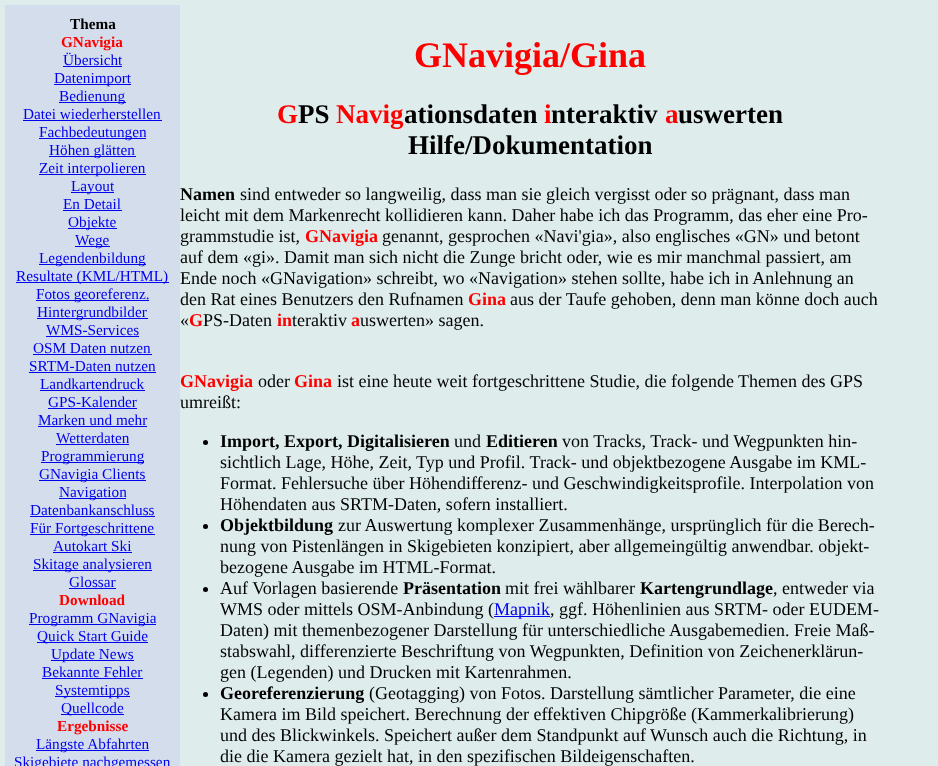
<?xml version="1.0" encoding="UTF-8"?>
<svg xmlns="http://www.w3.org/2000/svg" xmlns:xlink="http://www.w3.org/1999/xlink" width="938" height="766">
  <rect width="100%" height="100%" fill="#deecec" />
  <rect x="5" y="5" width="175" height="761" fill="#d3ddeb" />
  <rect x="63" y="66" width="59" height="1" fill="#0000ee" />
  <rect x="54" y="84" width="77" height="1" fill="#0000ee" />
  <rect x="59" y="102" width="67" height="1" fill="#0000ee" />
  <rect x="23" y="120" width="139" height="1" fill="#0000ee" />
  <rect x="39" y="138" width="107" height="1" fill="#0000ee" />
  <rect x="49" y="156" width="87" height="1" fill="#0000ee" />
  <rect x="39" y="174" width="107" height="1" fill="#0000ee" />
  <rect x="71" y="192" width="43" height="1" fill="#0000ee" />
  <rect x="63" y="210" width="59" height="1" fill="#0000ee" />
  <rect x="68" y="228" width="49" height="1" fill="#0000ee" />
  <rect x="75" y="246" width="35" height="1" fill="#0000ee" />
  <rect x="39" y="264" width="107" height="1" fill="#0000ee" />
  <rect x="16" y="282" width="153" height="1" fill="#0000ee" />
  <rect x="36" y="300" width="113" height="1" fill="#0000ee" />
  <rect x="37" y="318" width="111" height="1" fill="#0000ee" />
  <rect x="46" y="336" width="93" height="1" fill="#0000ee" />
  <rect x="33" y="354" width="119" height="1" fill="#0000ee" />
  <rect x="29" y="372" width="127" height="1" fill="#0000ee" />
  <rect x="40" y="390" width="105" height="1" fill="#0000ee" />
  <rect x="48" y="408" width="89" height="1" fill="#0000ee" />
  <rect x="38" y="426" width="109" height="1" fill="#0000ee" />
  <rect x="56" y="444" width="73" height="1" fill="#0000ee" />
  <rect x="41" y="462" width="103" height="1" fill="#0000ee" />
  <rect x="39" y="480" width="107" height="1" fill="#0000ee" />
  <rect x="59" y="498" width="67" height="1" fill="#0000ee" />
  <rect x="30" y="516" width="125" height="1" fill="#0000ee" />
  <rect x="30" y="534" width="125" height="1" fill="#0000ee" />
  <rect x="53" y="552" width="79" height="1" fill="#0000ee" />
  <rect x="33" y="570" width="119" height="1" fill="#0000ee" />
  <rect x="69" y="588" width="47" height="1" fill="#0000ee" />
  <rect x="29" y="624" width="127" height="1" fill="#0000ee" />
  <rect x="37" y="642" width="111" height="1" fill="#0000ee" />
  <rect x="51" y="660" width="83" height="1" fill="#0000ee" />
  <rect x="42" y="678" width="101" height="1" fill="#0000ee" />
  <rect x="55" y="696" width="75" height="1" fill="#0000ee" />
  <rect x="61" y="714" width="63" height="1" fill="#0000ee" />
  <rect x="36" y="750" width="113" height="1" fill="#0000ee" />
  <circle cx="205.5" cy="442.5" r="2.5" fill="#000000" />
  <circle cx="205.5" cy="526.5" r="2.5" fill="#000000" />
  <circle cx="205.5" cy="589.5" r="2.5" fill="#000000" />
  <rect x="494" y="616" width="56" height="1" fill="#0000ee" />
  <circle cx="205.5" cy="694.5" r="2.5" fill="#000000" />
  <text x="70" y="29" style="font-family: Liberation Serif; font-size: 15.25px; font-weight: bold; fill: #000000">Thema</text>
  <text x="61" y="47" style="font-family: Liberation Serif; font-size: 15.25px; font-weight: bold; fill: #ff0000">GNavigia</text>
  <text x="63" y="65" style="font-family: Liberation Serif; font-size: 15.25px; fill: #0000ee">Übersicht</text>
  <text x="54" y="83" style="font-family: Liberation Serif; font-size: 15.25px; fill: #0000ee">Datenimport</text>
  <text x="59" y="101" style="font-family: Liberation Serif; font-size: 15.25px; fill: #0000ee">Bedienung</text>
  <text x="23" y="119" style="font-family: Liberation Serif; font-size: 15.25px; fill: #0000ee">Datei wiederherstellen</text>
  <text x="39" y="137" style="font-family: Liberation Serif; font-size: 15.25px; fill: #0000ee">Fachbedeutungen</text>
  <text x="49" y="155" style="font-family: Liberation Serif; font-size: 15.25px; fill: #0000ee">Höhen glätten</text>
  <text x="39" y="173" style="font-family: Liberation Serif; font-size: 15.25px; fill: #0000ee">Zeit interpolieren</text>
  <text x="71" y="191" style="font-family: Liberation Serif; font-size: 15.25px; fill: #0000ee">Layout</text>
  <text x="63" y="209" style="font-family: Liberation Serif; font-size: 15.25px; fill: #0000ee">En Detail</text>
  <text x="68" y="227" style="font-family: Liberation Serif; font-size: 15.25px; fill: #0000ee">Objekte</text>
  <text x="75" y="245" style="font-family: Liberation Serif; font-size: 15.25px; fill: #0000ee">Wege</text>
  <text x="39" y="263" style="font-family: Liberation Serif; font-size: 15.25px; fill: #0000ee">Legendenbildung</text>
  <text x="16" y="281" style="font-family: Liberation Serif; font-size: 15.25px; fill: #0000ee">Resultate (KML/HTML)</text>
  <text x="36" y="299" style="font-family: Liberation Serif; font-size: 15.25px; fill: #0000ee">Fotos georeferenz.</text>
  <text x="37" y="317" style="font-family: Liberation Serif; font-size: 15.25px; fill: #0000ee">Hintergrundbilder</text>
  <text x="46" y="335" style="font-family: Liberation Serif; font-size: 15.25px; fill: #0000ee">WMS-Services</text>
  <text x="33" y="353" style="font-family: Liberation Serif; font-size: 15.25px; fill: #0000ee">OSM Daten nutzen</text>
  <text x="29" y="371" style="font-family: Liberation Serif; font-size: 15.25px; fill: #0000ee">SRTM-Daten nutzen</text>
  <text x="40" y="389" style="font-family: Liberation Serif; font-size: 15.25px; fill: #0000ee">Landkartendruck</text>
  <text x="48" y="407" style="font-family: Liberation Serif; font-size: 15.25px; fill: #0000ee">GPS-Kalender</text>
  <text x="38" y="425" style="font-family: Liberation Serif; font-size: 15.25px; fill: #0000ee">Marken und mehr</text>
  <text x="56" y="443" style="font-family: Liberation Serif; font-size: 15.25px; fill: #0000ee">Wetterdaten</text>
  <text x="41" y="461" style="font-family: Liberation Serif; font-size: 15.25px; fill: #0000ee">Programmierung</text>
  <text x="39" y="479" style="font-family: Liberation Serif; font-size: 15.25px; fill: #0000ee">GNavigia Clients</text>
  <text x="59" y="497" style="font-family: Liberation Serif; font-size: 15.25px; fill: #0000ee">Navigation</text>
  <text x="30" y="515" style="font-family: Liberation Serif; font-size: 15.25px; fill: #0000ee">Datenbankanschluss</text>
  <text x="30" y="533" style="font-family: Liberation Serif; font-size: 15.25px; fill: #0000ee">Für Fortgeschrittene</text>
  <text x="53" y="551" style="font-family: Liberation Serif; font-size: 15.25px; fill: #0000ee">Autokart Ski</text>
  <text x="33" y="569" style="font-family: Liberation Serif; font-size: 15.25px; fill: #0000ee">Skitage analysieren</text>
  <text x="69" y="587" style="font-family: Liberation Serif; font-size: 15.25px; fill: #0000ee">Glossar</text>
  <text x="59" y="605" style="font-family: Liberation Serif; font-size: 15.25px; font-weight: bold; fill: #ff0000">Download</text>
  <text x="29" y="623" style="font-family: Liberation Serif; font-size: 15.25px; fill: #0000ee">Programm GNavigia</text>
  <text x="37" y="641" style="font-family: Liberation Serif; font-size: 15.25px; fill: #0000ee">Quick Start Guide</text>
  <text x="51" y="659" style="font-family: Liberation Serif; font-size: 15.25px; fill: #0000ee">Update News</text>
  <text x="42" y="677" style="font-family: Liberation Serif; font-size: 15.25px; fill: #0000ee">Bekannte Fehler</text>
  <text x="55" y="695" style="font-family: Liberation Serif; font-size: 15.25px; fill: #0000ee">Systemtipps</text>
  <text x="61" y="713" style="font-family: Liberation Serif; font-size: 15.25px; fill: #0000ee">Quellcode</text>
  <text x="57" y="731" style="font-family: Liberation Serif; font-size: 15.25px; font-weight: bold; fill: #ff0000">Ergebnisse</text>
  <text x="36" y="749" style="font-family: Liberation Serif; font-size: 15.25px; fill: #0000ee">Längste Abfahrten</text>
  <text x="14" y="767" style="font-family: Liberation Serif; font-size: 15.25px; fill: #0000ee">Skigebiete nachgemessen</text>
  <text x="414" y="67" style="font-family: Liberation Serif; font-size: 36px; font-weight: bold; fill: #ff0000">GNavigia/Gina</text>
  <text x="277" y="123" style="font-family: Liberation Serif; font-size: 27px; font-weight: bold; fill: #ff0000">G</text>
  <text x="298" y="123" style="font-family: Liberation Serif; font-size: 27px; font-weight: bold; fill: #000000">PS</text>
  <text x="336" y="123" style="font-family: Liberation Serif; font-size: 27px; font-weight: bold; fill: #ff0000">Navig</text>
  <text x="404" y="123" style="font-family: Liberation Serif; font-size: 27px; font-weight: bold; fill: #000000">ationsdaten</text>
  <text x="544" y="123" style="font-family: Liberation Serif; font-size: 27px; font-weight: bold; fill: #ff0000">i</text>
  <text x="551" y="123" style="font-family: Liberation Serif; font-size: 27px; font-weight: bold; fill: #000000">nteraktiv</text>
  <text x="665" y="123" style="font-family: Liberation Serif; font-size: 27px; font-weight: bold; fill: #ff0000">a</text>
  <text x="678" y="123" style="font-family: Liberation Serif; font-size: 27px; font-weight: bold; fill: #000000">uswerten</text>
  <text x="408" y="154" style="font-family: Liberation Serif; font-size: 27px; font-weight: bold; fill: #000000">Hilfe/Dokumentation</text>
  <text x="180" y="200" style="font-family: Liberation Serif; font-size: 18px; font-weight: bold; fill: #000000">Namen</text>
  <text x="240" y="200" style="font-family: Liberation Serif; font-size: 18px; fill: #000000">sind entweder so langweilig, dass man sie gleich vergisst oder so prägnant, dass man</text>
  <text x="180" y="221" style="font-family: Liberation Serif; font-size: 18px; fill: #000000">leicht mit dem Markenrecht kollidieren kann. Daher habe ich das Programm, das eher eine Pro-</text>
  <text x="180" y="242" style="font-family: Liberation Serif; font-size: 18px; fill: #000000">grammstudie ist,</text>
  <text x="305" y="242" style="font-family: Liberation Serif; font-size: 18px; font-weight: bold; fill: #ff0000">GNavigia</text>
  <text x="382" y="242" style="font-family: Liberation Serif; font-size: 18px; fill: #000000">genannt, gesprochen «Navi'gia», also englisches «GN» und betont</text>
  <text x="180" y="263" style="font-family: Liberation Serif; font-size: 18px; fill: #000000">auf dem «gi». Damit man sich nicht die Zunge bricht oder, wie es mir manchmal passiert, am</text>
  <text x="180" y="284" style="font-family: Liberation Serif; font-size: 18px; fill: #000000">Ende noch «GNavigation» schreibt, wo «Navigation» stehen sollte, habe ich in Anlehnung an</text>
  <text x="180" y="305" style="font-family: Liberation Serif; font-size: 18px; fill: #000000">den Rat eines Benutzers den Rufnamen</text>
  <text x="468" y="305" style="font-family: Liberation Serif; font-size: 18px; font-weight: bold; fill: #ff0000">Gina</text>
  <text x="510" y="305" style="font-family: Liberation Serif; font-size: 18px; fill: #000000">aus der Taufe gehoben, denn man könne doch auch</text>
  <text x="180" y="326" style="font-family: Liberation Serif; font-size: 18px; fill: #000000">«</text>
  <text x="189" y="326" style="font-family: Liberation Serif; font-size: 18px; font-weight: bold; fill: #ff0000">G</text>
  <text x="203" y="326" style="font-family: Liberation Serif; font-size: 18px; fill: #000000">PS-Daten</text>
  <text x="277" y="326" style="font-family: Liberation Serif; font-size: 18px; font-weight: bold; fill: #ff0000">in</text>
  <text x="292" y="326" style="font-family: Liberation Serif; font-size: 18px; fill: #000000">teraktiv</text>
  <text x="351" y="326" style="font-family: Liberation Serif; font-size: 18px; font-weight: bold; fill: #ff0000">a</text>
  <text x="360" y="326" style="font-family: Liberation Serif; font-size: 18px; fill: #000000">uswerten» sagen.</text>
  <text x="180" y="387" style="font-family: Liberation Serif; font-size: 18px; font-weight: bold; fill: #ff0000">GNavigia</text>
  <text x="258" y="387" style="font-family: Liberation Serif; font-size: 18px; fill: #000000">oder</text>
  <text x="294" y="387" style="font-family: Liberation Serif; font-size: 18px; font-weight: bold; fill: #ff0000">Gina</text>
  <text x="337" y="387" style="font-family: Liberation Serif; font-size: 18px; fill: #000000">ist eine heute weit fortgeschrittene Studie, die folgende Themen des GPS</text>
  <text x="180" y="408" style="font-family: Liberation Serif; font-size: 18px; fill: #000000">umreißt:</text>
  <text x="220" y="447" style="font-family: Liberation Serif; font-size: 18px; font-weight: bold; fill: #000000">Import, Export, Digitalisieren</text>
  <text x="454" y="447" style="font-family: Liberation Serif; font-size: 18px; fill: #000000">und</text>
  <text x="486" y="447" style="font-family: Liberation Serif; font-size: 18px; font-weight: bold; fill: #000000">Editieren</text>
  <text x="562" y="447" style="font-family: Liberation Serif; font-size: 18px; fill: #000000">von Tracks, Track- und Wegpunkten hin-</text>
  <text x="220" y="468" style="font-family: Liberation Serif; font-size: 18px; fill: #000000">sichtlich Lage, Höhe, Zeit, Typ und Profil. Track- und objektbezogene Ausgabe im KML-</text>
  <text x="220" y="489" style="font-family: Liberation Serif; font-size: 18px; fill: #000000">Format. Fehlersuche über Höhendifferenz- und Geschwindigkeitsprofile. Interpolation von</text>
  <text x="220" y="510" style="font-family: Liberation Serif; font-size: 18px; fill: #000000">Höhendaten aus SRTM-Daten, sofern installiert.</text>
  <text x="220" y="531" style="font-family: Liberation Serif; font-size: 18px; font-weight: bold; fill: #000000">Objektbildung</text>
  <text x="338" y="531" style="font-family: Liberation Serif; font-size: 18px; fill: #000000">zur Auswertung komplexer Zusammenhänge, ursprünglich für die Berech-</text>
  <text x="220" y="552" style="font-family: Liberation Serif; font-size: 18px; fill: #000000">nung von Pistenlängen in Skigebieten konzipiert, aber allgemeingültig anwendbar. objekt-</text>
  <text x="220" y="573" style="font-family: Liberation Serif; font-size: 18px; fill: #000000">bezogene Ausgabe im HTML-Format.</text>
  <text x="220" y="594" style="font-family: Liberation Serif; font-size: 18px; fill: #000000">Auf Vorlagen basierende</text>
  <text x="403" y="594" style="font-family: Liberation Serif; font-size: 18px; font-weight: bold; fill: #000000">Präsentation</text>
  <text x="505" y="594" style="font-family: Liberation Serif; font-size: 18px; fill: #000000">mit frei wählbarer</text>
  <text x="640" y="594" style="font-family: Liberation Serif; font-size: 18px; font-weight: bold; fill: #000000">Kartengrundlage</text>
  <text x="773" y="594" style="font-family: Liberation Serif; font-size: 18px; fill: #000000">, entweder via</text>
  <text x="220" y="615" style="font-family: Liberation Serif; font-size: 18px; fill: #000000">WMS oder mittels OSM-Anbindung (</text>
  <text x="494" y="615" style="font-family: Liberation Serif; font-size: 18px; fill: #0000ee">Mapnik</text>
  <text x="550" y="615" style="font-family: Liberation Serif; font-size: 18px; fill: #000000">, ggf. Höhenlinien aus SRTM- oder EUDEM-</text>
  <text x="220" y="636" style="font-family: Liberation Serif; font-size: 18px; fill: #000000">Daten) mit themenbezogener Darstellung für unterschiedliche</text>
  <text x="669" y="636" style="font-family: Liberation Serif; font-size: 18px; fill: #000000">Ausgabemedien. Freie Maß-</text>
  <text x="220" y="657" style="font-family: Liberation Serif; font-size: 18px; fill: #000000">stabswahl, differenzierte Beschriftung von Wegpunkten, Definition von Zeichenerklärun-</text>
  <text x="220" y="678" style="font-family: Liberation Serif; font-size: 18px; fill: #000000">gen (Legenden) und Drucken mit Kartenrahmen.</text>
  <text x="220" y="699" style="font-family: Liberation Serif; font-size: 18px; font-weight: bold; fill: #000000">Georeferenzierung</text>
  <text x="369" y="699" style="font-family: Liberation Serif; font-size: 18px; fill: #000000">(Geotagging) von Fotos. Darstellung sämtlicher Parameter, die eine</text>
  <text x="220" y="720" style="font-family: Liberation Serif; font-size: 18px; fill: #000000">Kamera im Bild speichert. Berechnung der effektiven Chipgröße (Kammerkalibrierung)</text>
  <text x="220" y="741" style="font-family: Liberation Serif; font-size: 18px; fill: #000000">und des Blickwinkels. Speichert außer dem Standpunkt auf Wunsch auch die Richtung, in</text>
  <text x="220" y="762" style="font-family: Liberation Serif; font-size: 18px; fill: #000000">die die Kamera gezielt hat, in den spezifischen Bildeigenschaften.</text>
</svg>
